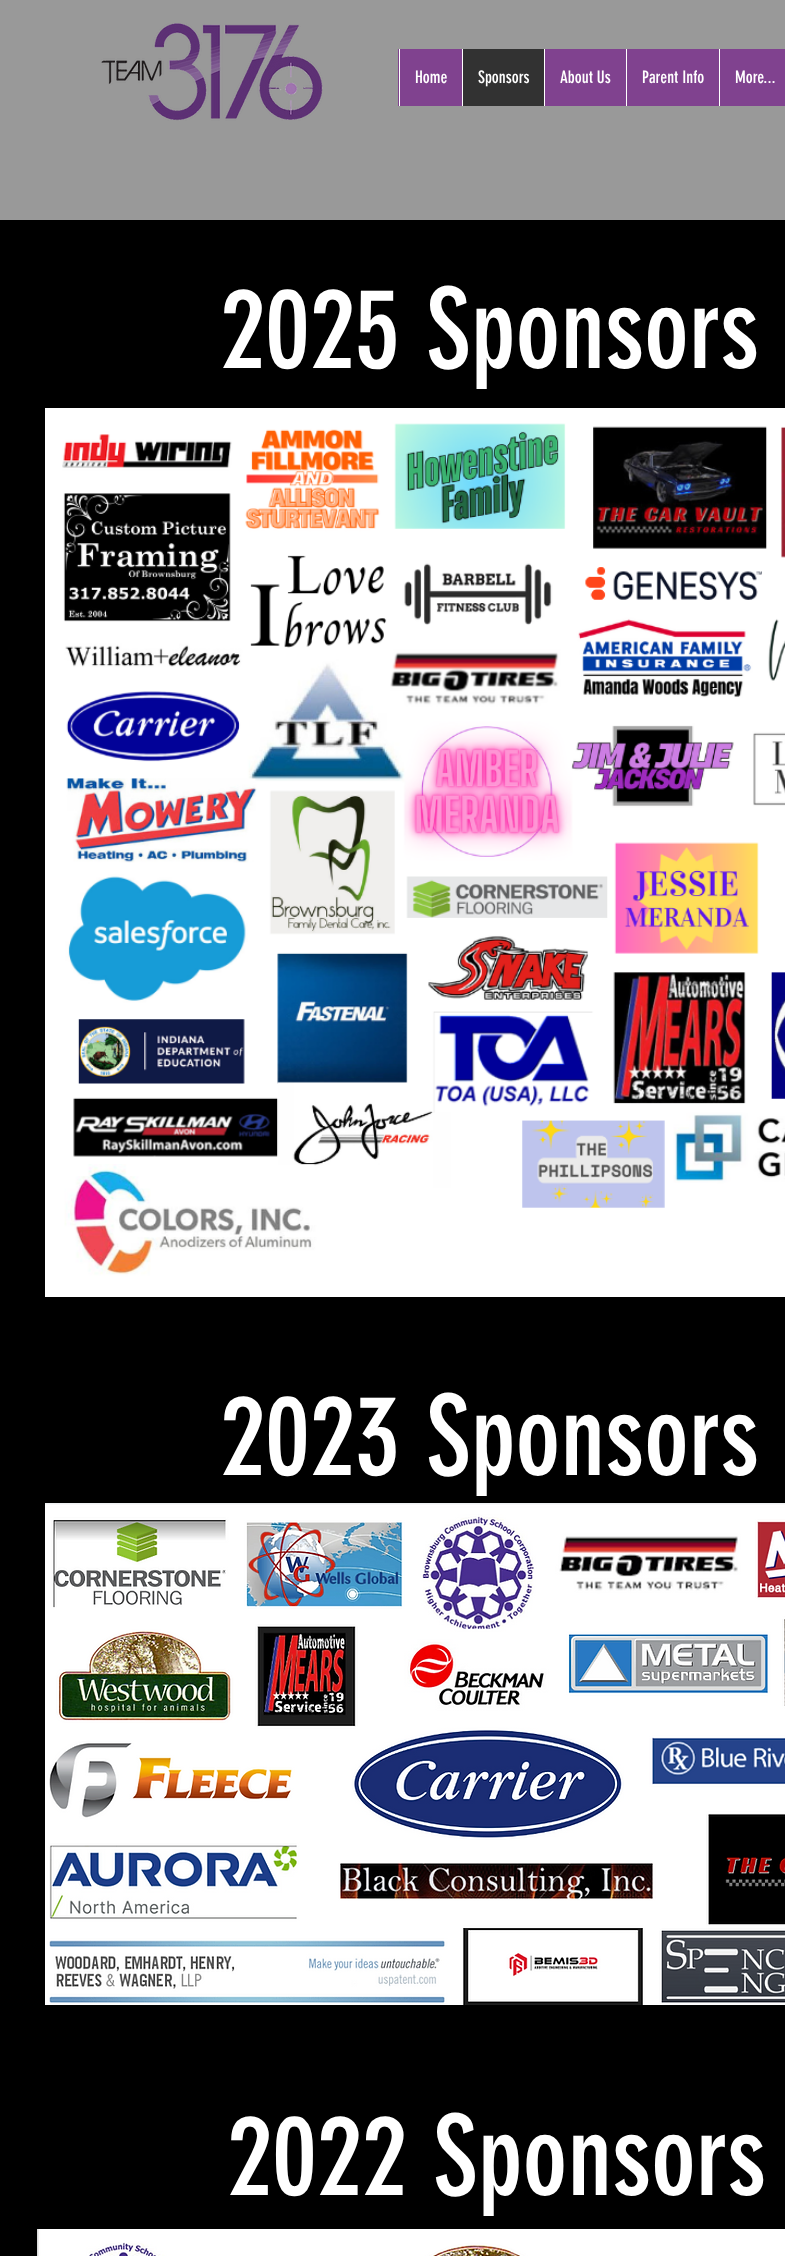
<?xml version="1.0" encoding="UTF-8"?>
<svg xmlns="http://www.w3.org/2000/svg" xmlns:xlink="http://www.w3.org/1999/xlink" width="785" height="2256">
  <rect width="100%" height="100%" fill="#000000" />
  <rect width="785" height="220" fill="#999999" />
  <image x="101" y="23" width="222" height="98" xlink:href="image1.png" />
  <rect x="398" y="49" width="387" height="57" fill="#80428f" />
  <rect x="399" y="49" width="1" height="57" fill="#ffffff" />
  <rect x="463" y="49" width="81" height="57" fill="#323232" />
  <rect x="462" y="49" width="1" height="57" fill="#ffffff" />
  <rect x="544" y="49" width="1" height="57" fill="#ffffff" />
  <rect x="626" y="49" width="1" height="57" fill="#ffffff" />
  <rect x="719" y="49" width="1" height="57" fill="#ffffff" />
  <image x="45" y="408" width="740" height="889" xlink:href="image2.png" />
  <image x="45" y="1503" width="740" height="502" xlink:href="image3.png" />
  <image x="37" y="2229" width="748" height="27" xlink:href="image4.png" />
  <text x="415" y="83" style="font-family: 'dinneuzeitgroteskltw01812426'; font-size: 17px; fill: #ffffff">Home</text>
  <text x="478" y="83" style="font-family: 'dinneuzeitgroteskltw01812426'; font-size: 17px; fill: #ffffff">Sponsors</text>
  <text x="560" y="83" style="font-family: 'dinneuzeitgroteskltw01812426'; font-size: 17px; fill: #ffffff">About Us</text>
  <text x="642" y="83" style="font-family: 'dinneuzeitgroteskltw01812426'; font-size: 17px; fill: #ffffff">Parent Info</text>
  <text x="735" y="83" style="font-family: 'dinneuzeitgroteskltw01812426'; font-size: 17px; fill: #ffffff">More...</text>
  <text x="220" y="368" style="font-family: 'dinneuzeitgroteskltw01812426'; font-size: 110px; fill: #ffffff">2025 Sponsors</text>
  <text x="220" y="1475" style="font-family: 'dinneuzeitgroteskltw01812426'; font-size: 110px; fill: #ffffff">2023 Sponsors</text>
  <text x="227" y="2195" style="font-family: 'dinneuzeitgroteskltw01812426'; font-size: 110px; fill: #ffffff">2022 Sponsors</text>
</svg>
